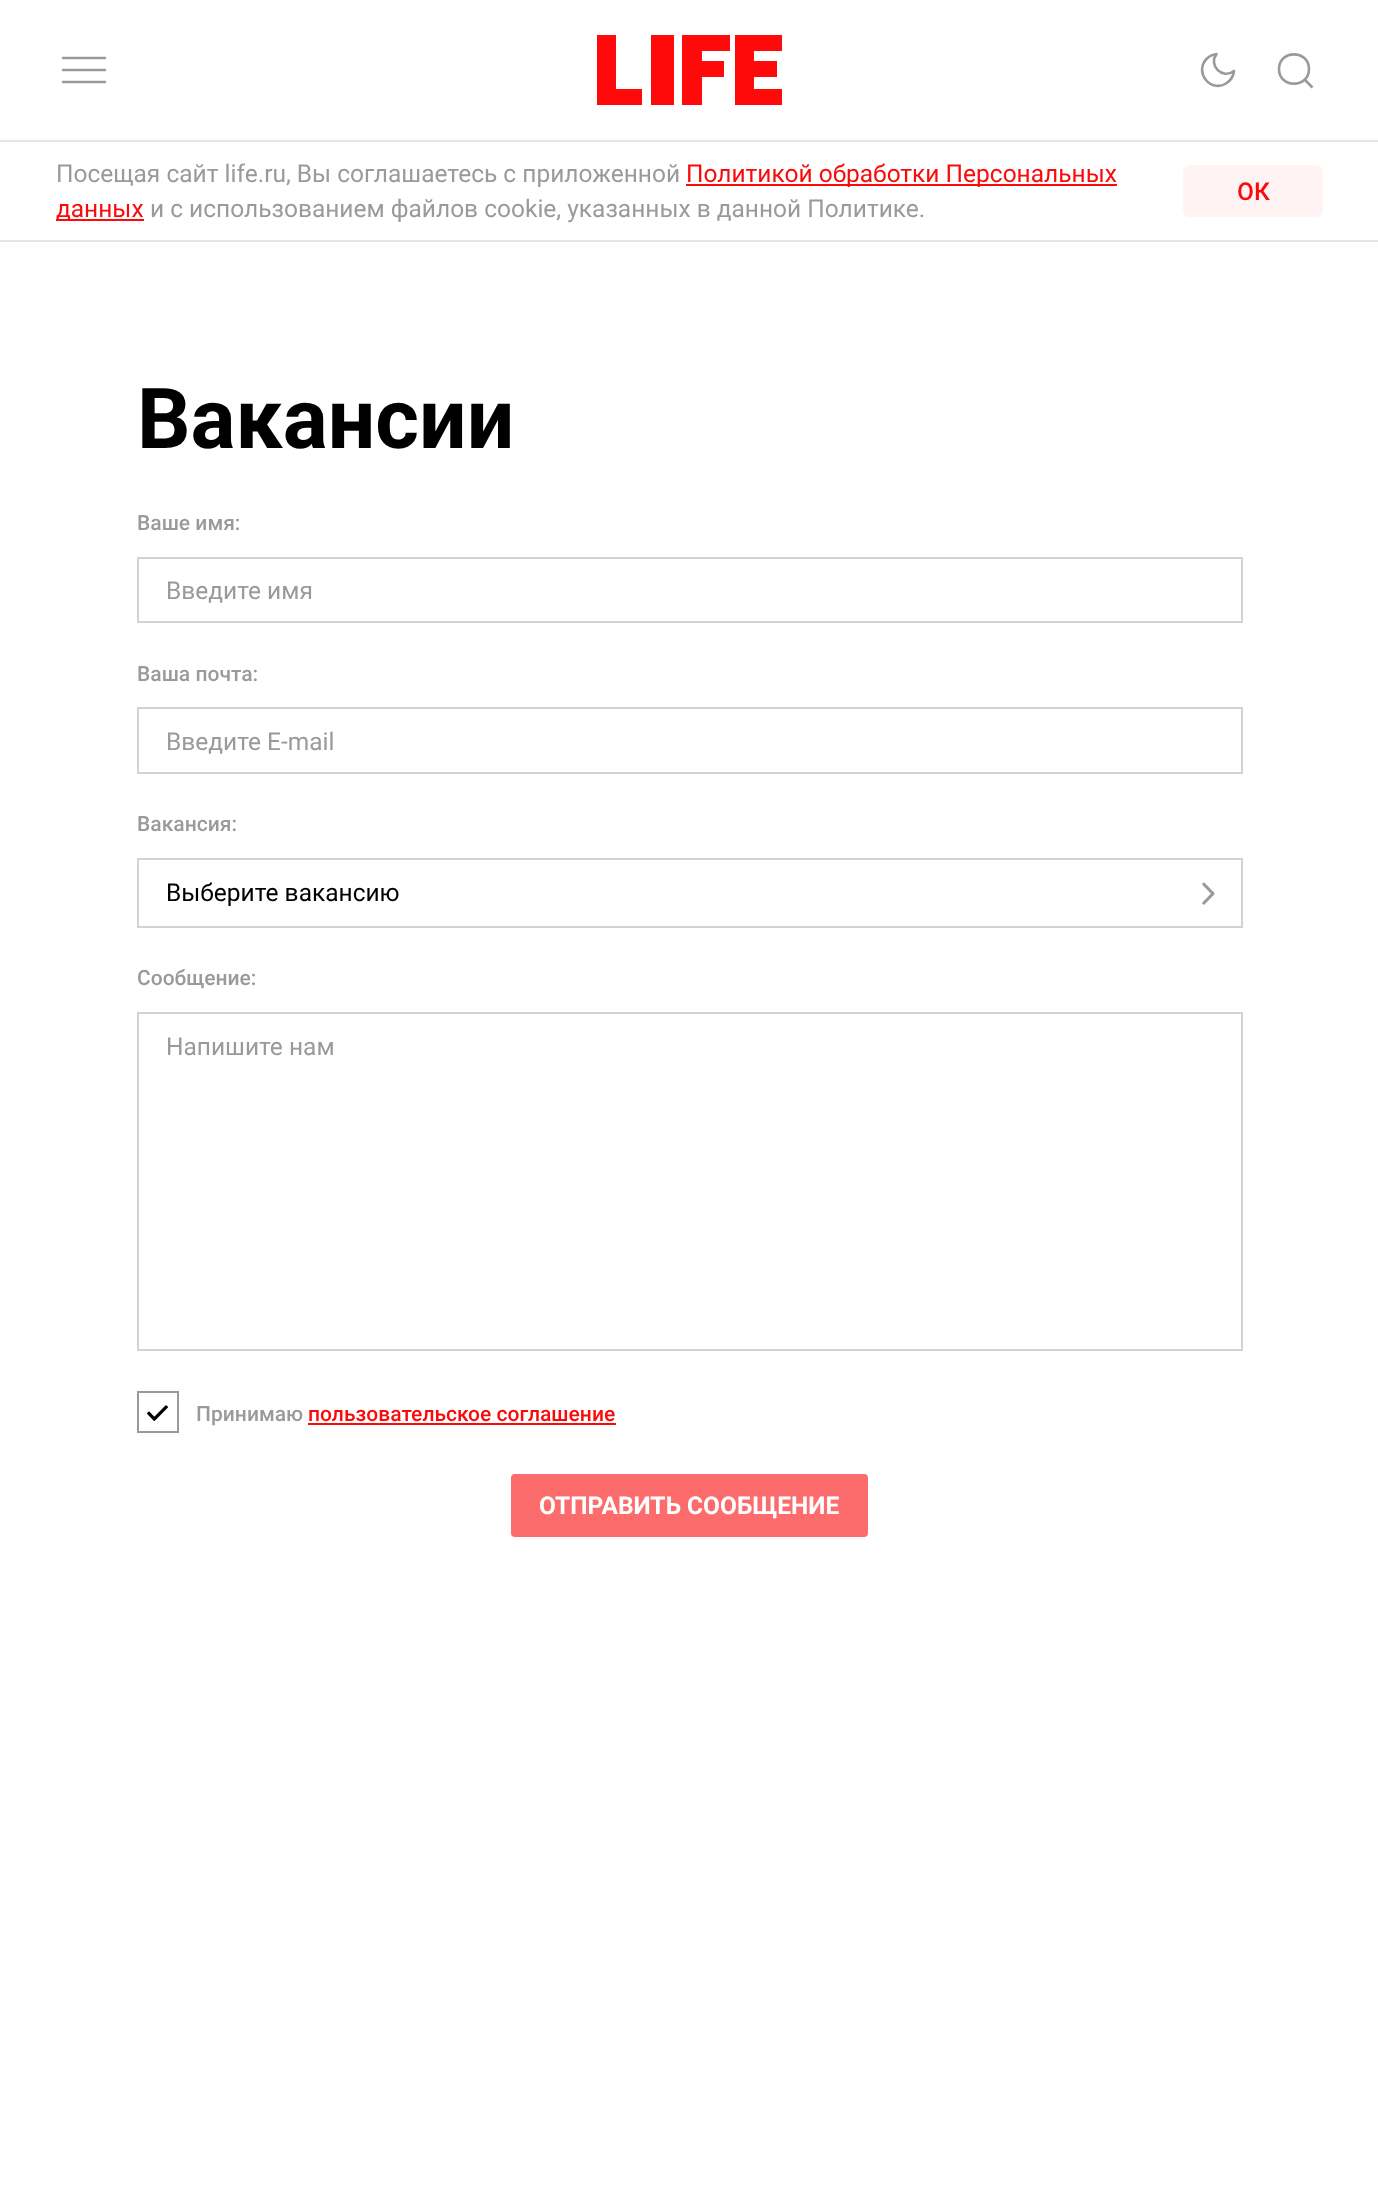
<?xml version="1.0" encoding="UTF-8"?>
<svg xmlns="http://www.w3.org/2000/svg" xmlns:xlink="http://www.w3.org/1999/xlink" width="1378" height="2198">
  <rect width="100%" height="100%" fill="#ffffff" />
  <rect y="140" width="1378" height="2" fill="#e6e6e6" />
  <path d="M 63 70 h 42 m -42 12 h 42 m -42 -24 h 42" fill="none" stroke="#9a9a9a" stroke-width="2.6" stroke-linecap="round" />
  <path d="M 616 35 h -19 v 70 h 45 v -16 h -26 z m 35 70 h 23 v -70 h -23 z m 31 0 h 20 v -28 h 22 v -16 h -22 v -10 h 28 v -16 h -48 z m 53 -70 v 70 h 47 v -16 h -28 v -12 h 23 v -16 h -23 v -10 h 28 v -16 z" fill="#ff0a0a" />
  <path d="M 1234 71 c -0.5 5 -4 10 -8 12.5 c -15.5 9.5 -32 -11.5 -19.5 -24.5 c 2.5 -2.5 6 -4.5 10 -5 c -8.5 11.5 6 26 17.5 17 z" fill="none" stroke="#9a9a9a" stroke-width="2.6" stroke-linecap="round" stroke-linejoin="round" />
  <path d="M 1305.5 80.5 l 7 7 m -3.5 -18.5 c 0 19.5 -30 19.5 -30 0 c 0 -19.5 30 -19.5 30 0 z" fill="none" stroke="#9a9a9a" stroke-width="2.6" />
  <rect y="240" width="1378" height="2" fill="#e6e6e6" />
  <rect x="686" y="184" width="431" height="2" fill="#ff0a0a" />
  <rect x="56" y="219" width="88" height="2" fill="#ff0a0a" />
  <rect x="1183" y="165" width="140" height="52" rx="7" fill="#fff3f3" />
  <rect x="138" y="558" width="1104" height="64" fill="none" stroke="#d3d3d3" stroke-width="2" />
  <rect x="138" y="708" width="1104" height="65" fill="none" stroke="#d3d3d3" stroke-width="2" />
  <rect x="138" y="859" width="1104" height="68" fill="none" stroke="#d3d3d3" stroke-width="2" />
  <image x="1202" y="882" width="13" height="23" xlink:href="image1.png" />
  <rect x="138" y="1013" width="1104" height="337" fill="none" stroke="#d3d3d3" stroke-width="2" />
  <rect x="138" y="1392" width="40" height="40" fill="none" stroke="#9a9a9a" stroke-width="2" />
  <image x="147" y="1405" width="21" height="16" xlink:href="image2.png" />
  <rect x="308" y="1423" width="308" height="2" fill="#fa0a0a" />
  <rect x="511" y="1474" width="357" height="63" rx="4" fill="#fc6c6c" />
  <text x="56" y="182" style="font-family: Roboto; font-size: 24.5px; fill: #9a9a9a">Посещая сайт life.ru, Вы соглашаетесь с приложенной</text>
  <text x="686" y="182" style="font-family: Roboto; font-size: 24.5px; fill: #fa0a0a">Политикой обработки Персональных</text>
  <text x="56" y="217" style="font-family: Roboto; font-size: 24.5px; fill: #fa0a0a">данных</text>
  <text x="150" y="217" style="font-family: Roboto; font-size: 24.5px; fill: #9a9a9a">и с использованием файлов cookie, указанных в данной Политике.</text>
  <text x="1237" y="200" style="font-family: Roboto; font-size: 24.5px; font-weight: 500; fill: #fa0a0a">ОК</text>
  <text x="137" y="448" style="font-family: Roboto; font-size: 84px; font-weight: bold; fill: #000000">Вакансии</text>
  <text x="137" y="530" style="font-family: Roboto; font-size: 21px; font-weight: 500; fill: #9a9a9a">Ваше имя:</text>
  <text x="166" y="599" style="font-family: Roboto; font-size: 24.5px; fill: #9a9a9a">Введите имя</text>
  <text x="137" y="681" style="font-family: Roboto; font-size: 21px; font-weight: 500; fill: #9a9a9a">Ваша почта:</text>
  <text x="166" y="750" style="font-family: Roboto; font-size: 24.5px; fill: #9a9a9a">Введите E-mail</text>
  <text x="137" y="831" style="font-family: Roboto; font-size: 21px; font-weight: 500; fill: #9a9a9a">Вакансия:</text>
  <text x="166" y="901" style="font-family: Roboto; font-size: 24.5px; fill: #000000">Выберите вакансию</text>
  <text x="137" y="985" style="font-family: Roboto; font-size: 21px; font-weight: 500; fill: #9a9a9a">Сообщение:</text>
  <text x="166" y="1055" style="font-family: Roboto; font-size: 24.5px; fill: #9a9a9a">Напишите нам</text>
  <text x="196" y="1421" style="font-family: Roboto; font-size: 21px; font-weight: 500; fill: #9a9a9a">Принимаю</text>
  <text x="308" y="1421" style="font-family: Roboto; font-size: 21px; font-weight: 500; fill: #fa0a0a">пользовательское соглашение</text>
  <text x="539" y="1514" style="font-family: Roboto; font-size: 24.5px; font-weight: bold; fill: #ffffff">ОТПРАВИТЬ СООБЩЕНИЕ</text>
</svg>
